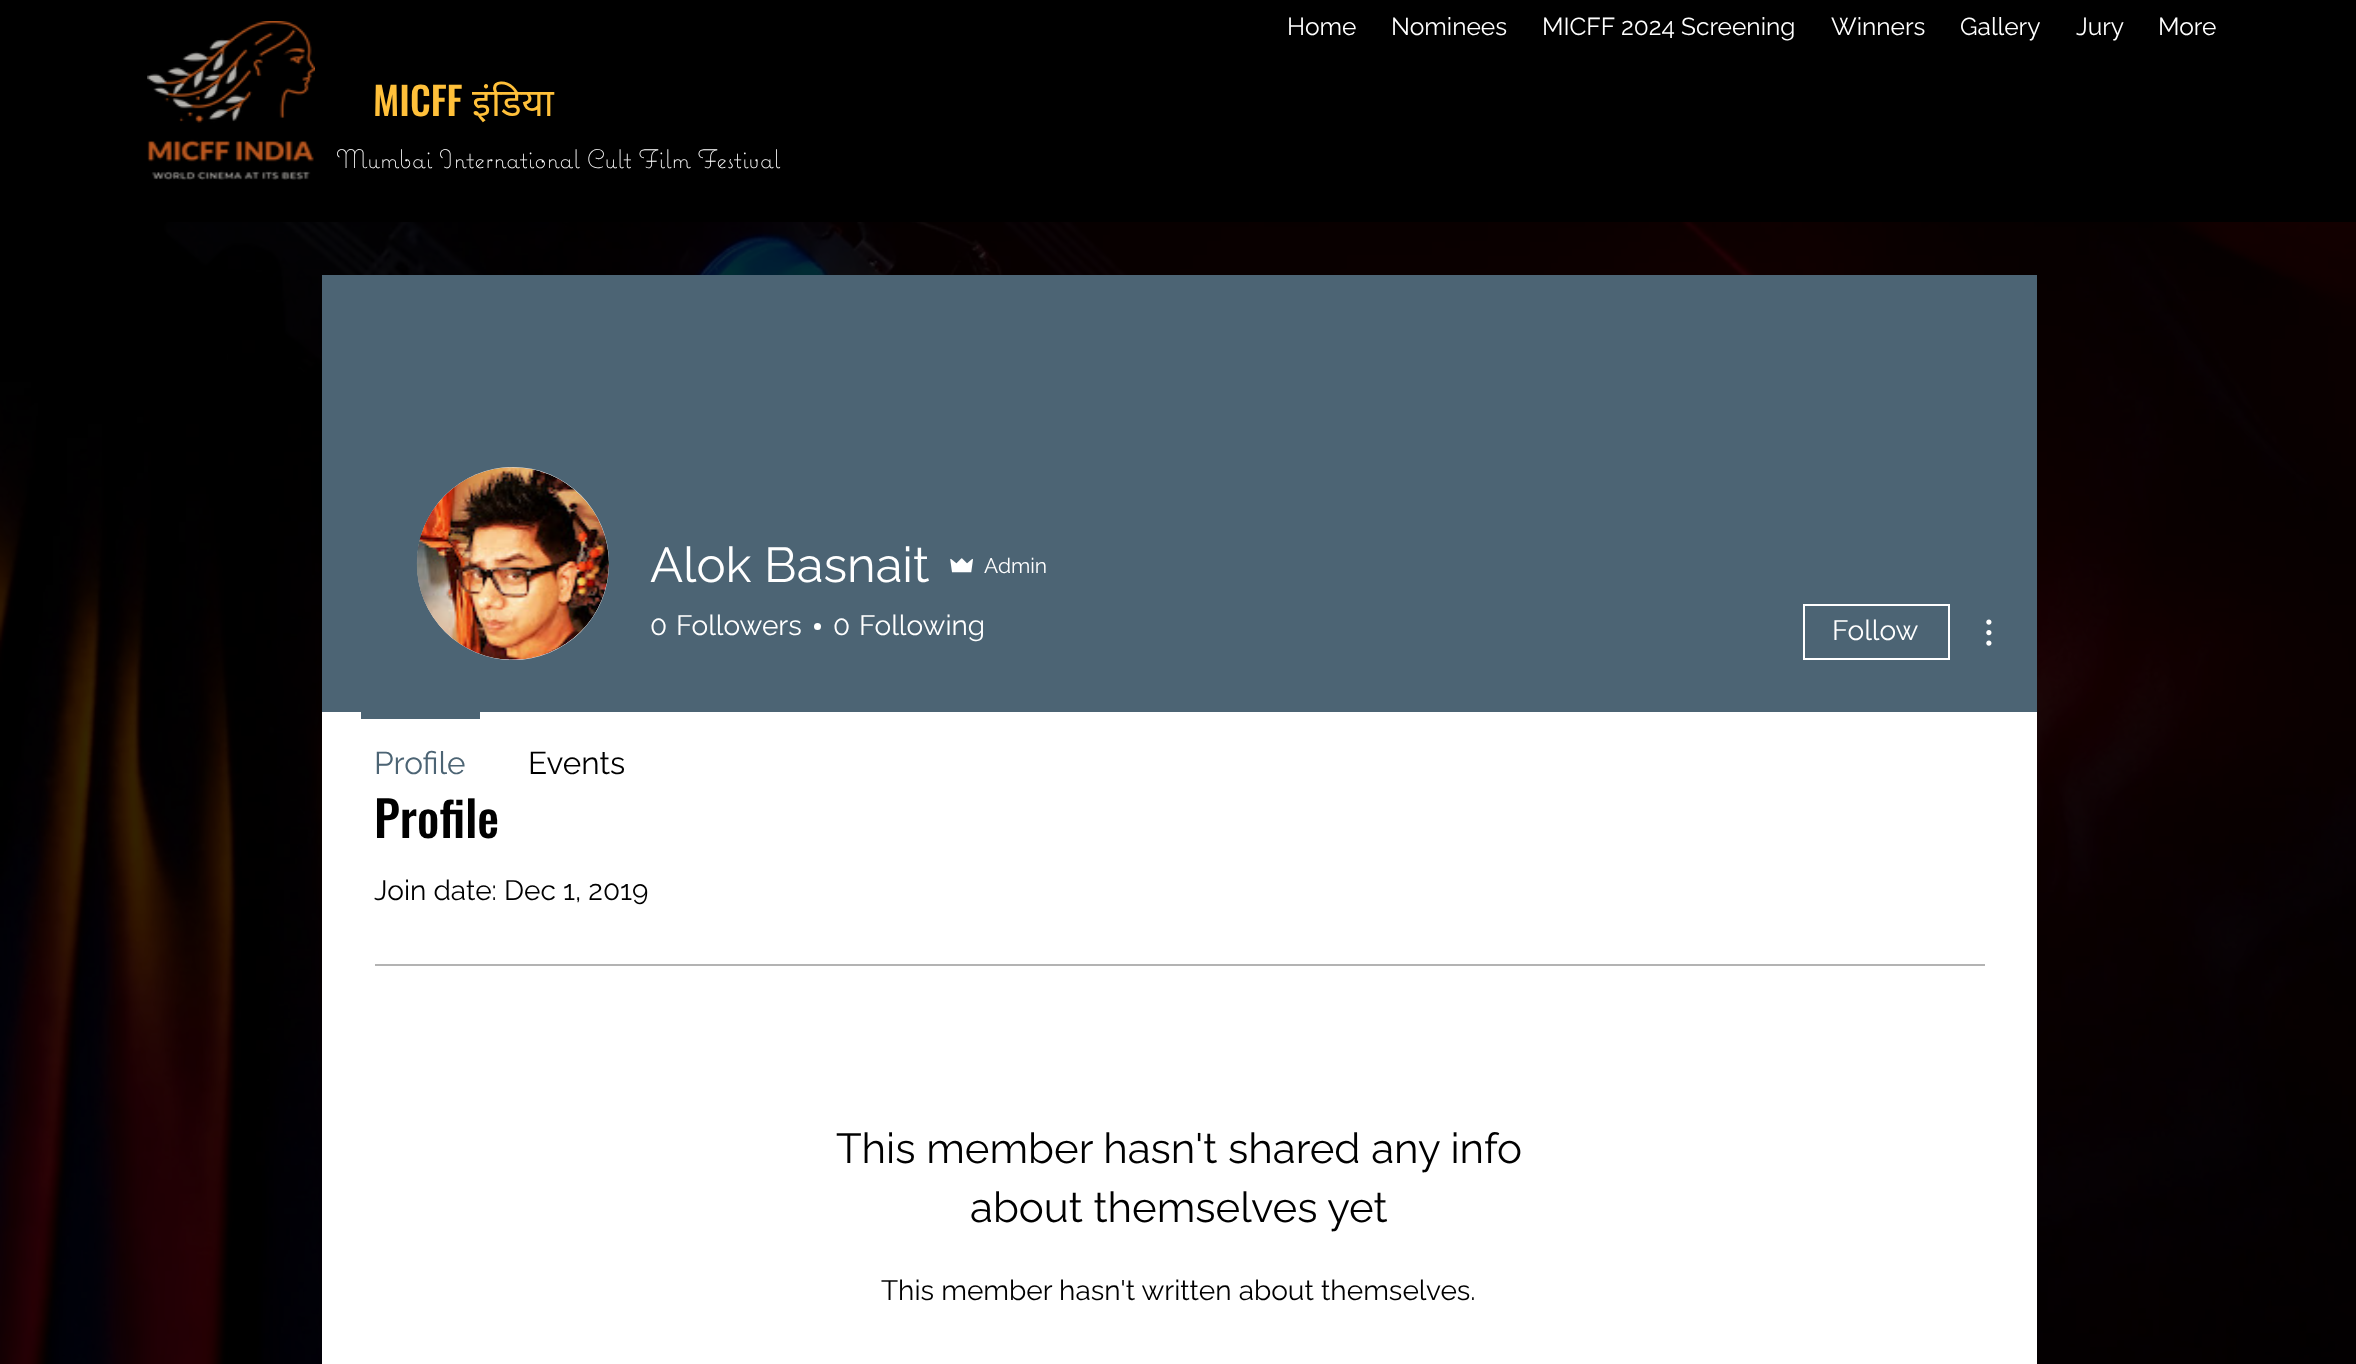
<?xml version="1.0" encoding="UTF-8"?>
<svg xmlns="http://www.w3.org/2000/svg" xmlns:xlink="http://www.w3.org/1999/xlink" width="2356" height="1364">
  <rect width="100%" height="100%" fill="#000000" />
  <image x="147" y="21" width="168" height="159" xlink:href="image1.png" />
  <image x="0" y="222" width="2356" height="1142" xlink:href="image5.png" />
  <rect x="322" y="275" width="1715" height="437" fill="#4c6474" />
  <rect x="417" y="467" width="192" height="193" rx="96" fill="#d8d8d8" />
  <image x="416" y="467" width="193" height="193" xlink:href="image2.png" />
  <image x="950" y="558" width="23" height="15" xlink:href="image3.png" />
  <circle cx="817.5" cy="626.5" r="3.5" fill="#ffffff" />
  <rect x="1804" y="605" width="145" height="54" fill="none" stroke="#ffffff" stroke-width="2" />
  <image x="1986" y="619" width="6" height="27" xlink:href="image4.png" />
  <rect x="322" y="712" width="1715" height="652" fill="#ffffff" />
  <rect x="361" y="712" width="119" height="7" fill="#4c6474" />
  <rect x="375" y="964" width="1610" height="2" fill="#b3b3b3" />
  <text x="1287" y="35" style="font-family: Raleway; font-size: 24.5px; fill: #ffffff">Home</text>
  <text x="1391" y="35" style="font-family: Raleway; font-size: 24.5px; fill: #ffffff">Nominees</text>
  <text x="1542" y="35" style="font-family: Raleway; font-size: 24.5px; fill: #ffffff">MICFF 2024 Screening</text>
  <text x="1831" y="35" style="font-family: Raleway; font-size: 24.5px; fill: #ffffff">Winners</text>
  <text x="1960" y="35" style="font-family: Raleway; font-size: 24.5px; fill: #ffffff">Gallery</text>
  <text x="2076" y="35" style="font-family: Raleway; font-size: 24.5px; fill: #ffffff">Jury</text>
  <text x="2158" y="35" style="font-family: Raleway; font-size: 24.5px; fill: #ffffff">More</text>
  <text x="373" y="116" style="font-family: Oswald; font-size: 38.5px; font-weight: 500; fill: #ffc03a">MICFF</text>
  <text x="472" y="116" style="font-family: Noto Sans; font-size: 38.5px; fill: #ffc03a">इंडिया</text>
  <text x="336" y="168" style="font-family: 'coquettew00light'; font-size: 26.25px; font-weight: 300; fill: #ffffff">Mumbai International Cult Film Festival</text>
  <text x="650" y="582" style="font-family: Raleway; font-size: 49px; fill: #ffffff">Alok Basnait</text>
  <text x="984" y="573" style="font-family: Raleway; font-size: 21px; fill: #ffffff">Admin</text>
  <text x="650" y="635" style="font-family: Raleway; font-size: 28px; fill: #ffffff">0</text>
  <text x="676" y="635" style="font-family: Raleway; font-size: 28px; fill: #ffffff">Followers</text>
  <text x="833" y="635" style="font-family: Raleway; font-size: 28px; fill: #ffffff">0</text>
  <text x="859" y="635" style="font-family: Raleway; font-size: 28px; fill: #ffffff">Following</text>
  <text x="1832" y="640" style="font-family: Raleway; font-size: 28px; fill: #ffffff">Follow</text>
  <text x="374" y="774" style="font-family: Raleway; font-size: 31.5px; fill: #4c6474">Profile</text>
  <text x="528" y="774" style="font-family: Raleway; font-size: 31.5px; fill: #000000">Events</text>
  <text x="374" y="838" style="font-family: Oswald; font-size: 49px; font-weight: 500; fill: #000000">Profile</text>
  <text x="374" y="900" style="font-family: Raleway; font-size: 28px; fill: #000000">Join date: Dec 1, 2019</text>
  <text x="836" y="1163" style="font-family: Raleway; font-size: 42px; fill: #000000">This member hasn't shared any info</text>
  <text x="970" y="1222" style="font-family: Raleway; font-size: 42px; fill: #000000">about themselves yet</text>
  <text x="881" y="1300" style="font-family: Raleway; font-size: 28px; fill: #000000">This member hasn't written about themselves.</text>
</svg>
